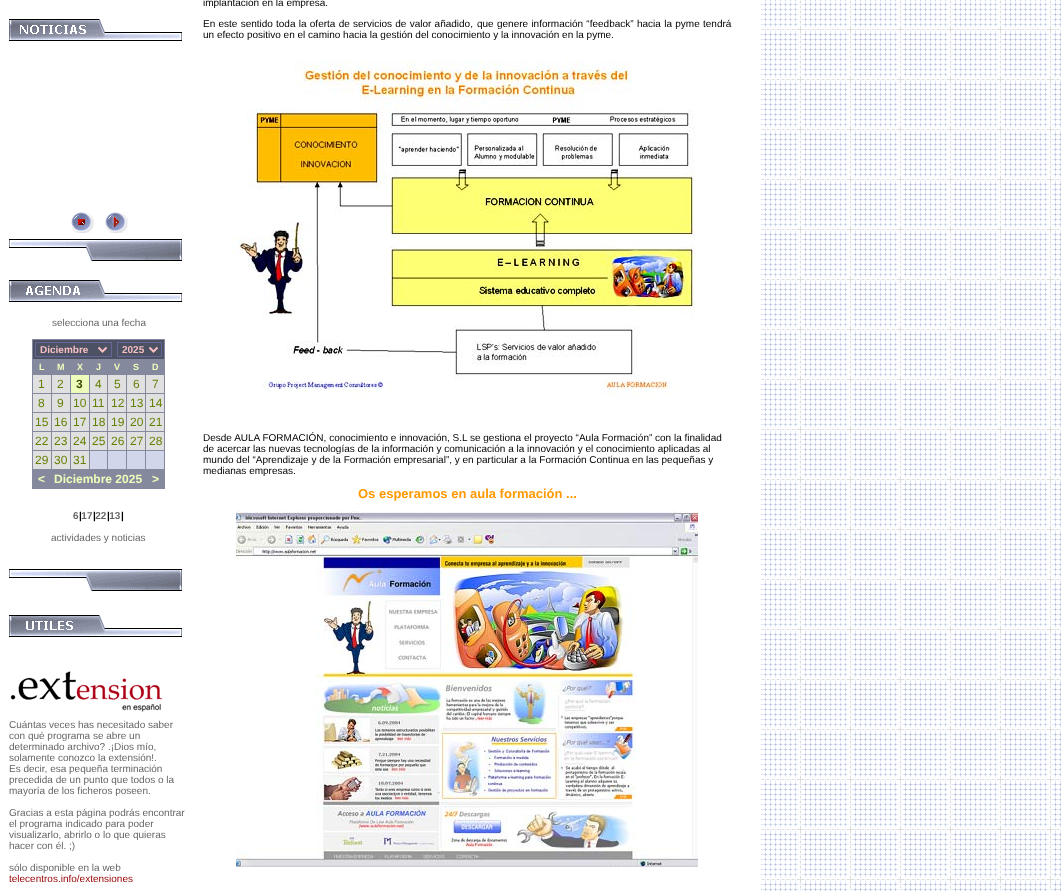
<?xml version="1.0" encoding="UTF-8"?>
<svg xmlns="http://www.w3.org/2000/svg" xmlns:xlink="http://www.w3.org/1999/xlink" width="1061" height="891">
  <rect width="100%" height="100%" fill="#ffffff" />
  <image x="761" y="0" width="300" height="891" xlink:href="image1.png" />
  <image x="231" y="61" width="464" height="336" xlink:href="image2.png" />
  <image x="236" y="511" width="462" height="356" xlink:href="image3.png" />
  <image x="9" y="19" width="173" height="22" xlink:href="image4.png" />
  <image x="71" y="212" width="23" height="21" xlink:href="image5.png" />
  <image x="105" y="212" width="23" height="21" xlink:href="image6.png" />
  <image x="9" y="239" width="173" height="22" xlink:href="image7.png" />
  <image x="9" y="280" width="173" height="22" xlink:href="image8.png" />
  <rect x="32" y="339" width="133" height="150" fill="#84899d" />
  <rect x="33" y="340" width="131" height="19" fill="#4c5263" />
  <rect x="35.5" y="342.5" width="76" height="14" fill="none" stroke="#666699" />
  <path d="M 98.5 347.5 l 4 4 l 4 -4" fill="none" stroke="#f8bfc3" stroke-width="2" />
  <rect x="117.5" y="342.5" width="44" height="14" fill="none" stroke="#666699" />
  <path d="M 149.5 347.5 l 4 4 l 4 -4" fill="none" stroke="#f8bfc3" stroke-width="2" />
  <rect x="33" y="375" width="18" height="18" fill="#e0e0e0" />
  <rect x="52" y="375" width="18" height="18" fill="#e0e0e0" />
  <rect x="71" y="375" width="18" height="18" fill="#eefdbb" />
  <rect x="90" y="375" width="17" height="18" fill="#e0e0e0" />
  <rect x="108" y="375" width="18" height="18" fill="#e0e0e0" />
  <rect x="127" y="375" width="18" height="18" fill="#e0e0e0" />
  <rect x="146" y="375" width="18" height="18" fill="#e0e0e0" />
  <rect x="33" y="394" width="18" height="18" fill="#e0e0e0" />
  <rect x="52" y="394" width="18" height="18" fill="#e0e0e0" />
  <rect x="71" y="394" width="18" height="18" fill="#e0e0e0" />
  <rect x="90" y="394" width="17" height="18" fill="#e0e0e0" />
  <rect x="108" y="394" width="18" height="18" fill="#e0e0e0" />
  <rect x="127" y="394" width="18" height="18" fill="#e0e0e0" />
  <rect x="146" y="394" width="18" height="18" fill="#e0e0e0" />
  <rect x="33" y="413" width="18" height="18" fill="#e0e0e0" />
  <rect x="52" y="413" width="18" height="18" fill="#e0e0e0" />
  <rect x="71" y="413" width="18" height="18" fill="#e0e0e0" />
  <rect x="90" y="413" width="17" height="18" fill="#e0e0e0" />
  <rect x="108" y="413" width="18" height="18" fill="#e0e0e0" />
  <rect x="127" y="413" width="18" height="18" fill="#e0e0e0" />
  <rect x="146" y="413" width="18" height="18" fill="#e0e0e0" />
  <rect x="33" y="432" width="18" height="18" fill="#e0e0e0" />
  <rect x="52" y="432" width="18" height="18" fill="#e0e0e0" />
  <rect x="71" y="432" width="18" height="18" fill="#e0e0e0" />
  <rect x="90" y="432" width="17" height="18" fill="#e0e0e0" />
  <rect x="108" y="432" width="18" height="18" fill="#e0e0e0" />
  <rect x="127" y="432" width="18" height="18" fill="#e0e0e0" />
  <rect x="146" y="432" width="18" height="18" fill="#e0e0e0" />
  <rect x="33" y="451" width="18" height="18" fill="#e0e0e0" />
  <rect x="52" y="451" width="18" height="18" fill="#e0e0e0" />
  <rect x="71" y="451" width="18" height="18" fill="#e0e0e0" />
  <rect x="90" y="451" width="17" height="18" fill="#d1d6ea" />
  <rect x="108" y="451" width="18" height="18" fill="#d1d6ea" />
  <rect x="127" y="451" width="18" height="18" fill="#d1d6ea" />
  <rect x="146" y="451" width="18" height="18" fill="#d1d6ea" />
  <image x="9" y="569" width="173" height="22" xlink:href="image7.png" />
  <image x="9" y="615" width="173" height="22" xlink:href="image9.png" />
  <image x="10" y="671" width="153" height="41" xlink:href="image10.png" />
  <text x="203" y="6" style="font-family: Liberation Sans; font-size: 10px; fill: #000000">implantación en la empresa.</text>
  <text x="203" y="27" word-spacing="0.5" style="font-family: Liberation Sans; font-size: 10px; fill: #000000">En este sentido</text>
  <text x="276" y="27" word-spacing="0.5" style="font-family: Liberation Sans; font-size: 10px; fill: #000000">toda la oferta de servicios de valor añadido,</text>
  <text x="477" y="27" word-spacing="0.5" style="font-family: Liberation Sans; font-size: 10px; fill: #000000">que genere información “feedback”</text>
  <text x="637" y="27" word-spacing="0.5" style="font-family: Liberation Sans; font-size: 10px; fill: #000000">hacia la pyme tendrá</text>
  <text x="203" y="38" style="font-family: Liberation Sans; font-size: 10px; fill: #000000">un efecto positivo en el camino hacia la gestión del conocimiento y la innovación en la pyme.</text>
  <text x="203" y="441" style="font-family: Liberation Sans; font-size: 10px; fill: #000000">Desde AULA FORMACIÓN, conocimiento e innovación, S.L se gestiona el proyecto “Aula Formación” con la finalidad</text>
  <text x="203" y="452" style="font-family: Liberation Sans; font-size: 10px; fill: #000000">de acercar las nuevas tecnologías de la información y comunicación a la innovación y el conocimiento aplicadas al</text>
  <text x="203" y="463" style="font-family: Liberation Sans; font-size: 10px; fill: #000000">mundo del “Aprendizaje y de la Formación empresarial”, y en particular a la Formación Continua en las pequeñas y</text>
  <text x="203" y="474" style="font-family: Liberation Sans; font-size: 10px; fill: #000000">medianas empresas.</text>
  <text x="358" y="498" style="font-family: Liberation Sans; font-size: 13px; font-weight: bold; fill: #ff9900">Os esperamos en aula formación ...</text>
  <text x="52" y="326" style="font-family: Liberation Sans; font-size: 10px; fill: #666666">selecciona una fecha</text>
  <text x="40" y="353" style="font-family: Liberation Sans; font-size: 10px; font-weight: bold; fill: #f8bfc3">Diciembre</text>
  <text x="122" y="353" style="font-family: Liberation Sans; font-size: 10px; font-weight: bold; fill: #f8bfc3">2025</text>
  <text x="39" y="370" style="font-family: Liberation Sans; font-size: 9px; font-weight: bold; fill: #eefdbb">L</text>
  <text x="57" y="370" style="font-family: Liberation Sans; font-size: 9px; font-weight: bold; fill: #eefdbb">M</text>
  <text x="77" y="370" style="font-family: Liberation Sans; font-size: 9px; font-weight: bold; fill: #eefdbb">X</text>
  <text x="96" y="370" style="font-family: Liberation Sans; font-size: 9px; font-weight: bold; fill: #eefdbb">J</text>
  <text x="114" y="370" style="font-family: Liberation Sans; font-size: 9px; font-weight: bold; fill: #eefdbb">V</text>
  <text x="133" y="370" style="font-family: Liberation Sans; font-size: 9px; font-weight: bold; fill: #eefdbb">S</text>
  <text x="152" y="370" style="font-family: Liberation Sans; font-size: 9px; font-weight: bold; fill: #eefdbb">D</text>
  <text x="38" y="388" style="font-family: Liberation Sans; font-size: 12px; fill: #648004">1</text>
  <text x="57" y="388" style="font-family: Liberation Sans; font-size: 12px; fill: #648004">2</text>
  <text x="76" y="388" style="font-family: Liberation Sans; font-size: 12px; font-weight: bold; fill: #3c4d02">3</text>
  <text x="95" y="388" style="font-family: Liberation Sans; font-size: 12px; fill: #648004">4</text>
  <text x="114" y="388" style="font-family: Liberation Sans; font-size: 12px; fill: #648004">5</text>
  <text x="133" y="388" style="font-family: Liberation Sans; font-size: 12px; fill: #648004">6</text>
  <text x="152" y="388" style="font-family: Liberation Sans; font-size: 12px; fill: #648004">7</text>
  <text x="38" y="407" style="font-family: Liberation Sans; font-size: 12px; fill: #648004">8</text>
  <text x="57" y="407" style="font-family: Liberation Sans; font-size: 12px; fill: #648004">9</text>
  <text x="73" y="407" style="font-family: Liberation Sans; font-size: 12px; fill: #648004">10</text>
  <text x="92" y="407" style="font-family: Liberation Sans; font-size: 12px; fill: #648004">11</text>
  <text x="111" y="407" style="font-family: Liberation Sans; font-size: 12px; fill: #648004">12</text>
  <text x="130" y="407" style="font-family: Liberation Sans; font-size: 12px; fill: #648004">13</text>
  <text x="149" y="407" style="font-family: Liberation Sans; font-size: 12px; fill: #648004">14</text>
  <text x="35" y="426" style="font-family: Liberation Sans; font-size: 12px; fill: #648004">15</text>
  <text x="54" y="426" style="font-family: Liberation Sans; font-size: 12px; fill: #648004">16</text>
  <text x="73" y="426" style="font-family: Liberation Sans; font-size: 12px; fill: #648004">17</text>
  <text x="92" y="426" style="font-family: Liberation Sans; font-size: 12px; fill: #648004">18</text>
  <text x="111" y="426" style="font-family: Liberation Sans; font-size: 12px; fill: #648004">19</text>
  <text x="130" y="426" style="font-family: Liberation Sans; font-size: 12px; fill: #648004">20</text>
  <text x="149" y="426" style="font-family: Liberation Sans; font-size: 12px; fill: #648004">21</text>
  <text x="35" y="445" style="font-family: Liberation Sans; font-size: 12px; fill: #648004">22</text>
  <text x="54" y="445" style="font-family: Liberation Sans; font-size: 12px; fill: #648004">23</text>
  <text x="73" y="445" style="font-family: Liberation Sans; font-size: 12px; fill: #648004">24</text>
  <text x="92" y="445" style="font-family: Liberation Sans; font-size: 12px; fill: #648004">25</text>
  <text x="111" y="445" style="font-family: Liberation Sans; font-size: 12px; fill: #648004">26</text>
  <text x="130" y="445" style="font-family: Liberation Sans; font-size: 12px; fill: #648004">27</text>
  <text x="149" y="445" style="font-family: Liberation Sans; font-size: 12px; fill: #648004">28</text>
  <text x="35" y="464" style="font-family: Liberation Sans; font-size: 12px; fill: #648004">29</text>
  <text x="54" y="464" style="font-family: Liberation Sans; font-size: 12px; fill: #648004">30</text>
  <text x="73" y="464" style="font-family: Liberation Sans; font-size: 12px; fill: #648004">31</text>
  <text x="38" y="483" style="font-family: Liberation Sans; font-size: 12px; font-weight: bold; fill: #eefdbb">&lt;</text>
  <text x="54" y="483" style="font-family: Liberation Sans; font-size: 12px; font-weight: bold; fill: #eefdbb">Diciembre 2025</text>
  <text x="152" y="483" style="font-family: Liberation Sans; font-size: 12px; font-weight: bold; fill: #eefdbb">&gt;</text>
  <text x="121" y="519" style="font-family: Liberation Sans; font-size: 10px; font-weight: bold; fill: #000000">|</text>
  <text x="73" y="519" style="font-family: Liberation Sans; font-size: 10px; font-weight: bold; fill: #666666">6 17 22 13</text>
  <text x="107" y="519" style="font-family: Liberation Sans; font-size: 10px; font-weight: bold; fill: #000000">|</text>
  <text x="93" y="519" style="font-family: Liberation Sans; font-size: 10px; font-weight: bold; fill: #000000">|</text>
  <text x="79" y="519" style="font-family: Liberation Sans; font-size: 10px; font-weight: bold; fill: #000000">|</text>
  <text x="51" y="541" style="font-family: Liberation Sans; font-size: 10px; fill: #666666">actividades y noticias</text>
  <text x="9" y="728" style="font-family: Liberation Sans; font-size: 10px; fill: #666666">Cuántas veces has necesitado saber</text>
  <text x="9" y="739" style="font-family: Liberation Sans; font-size: 10px; fill: #666666">con qué programa se abre un</text>
  <text x="9" y="750" style="font-family: Liberation Sans; font-size: 10px; fill: #666666">determinado archivo? .¡Dios mío,</text>
  <text x="9" y="761" style="font-family: Liberation Sans; font-size: 10px; fill: #666666">solamente conozco la extensión!.</text>
  <text x="9" y="772" style="font-family: Liberation Sans; font-size: 10px; fill: #666666">Es decir, esa pequeña terminación</text>
  <text x="9" y="783" style="font-family: Liberation Sans; font-size: 10px; fill: #666666">precedida de un punto que todos o la</text>
  <text x="9" y="794" style="font-family: Liberation Sans; font-size: 10px; fill: #666666">mayoría de los ficheros poseen.</text>
  <text x="9" y="816" style="font-family: Liberation Sans; font-size: 10px; fill: #666666">Gracias a esta página podrás encontrar</text>
  <text x="9" y="827" style="font-family: Liberation Sans; font-size: 10px; fill: #666666">el programa indicado para poder</text>
  <text x="9" y="838" style="font-family: Liberation Sans; font-size: 10px; fill: #666666">visualizarlo, abrirlo o lo que quieras</text>
  <text x="9" y="849" style="font-family: Liberation Sans; font-size: 10px; fill: #666666">hacer con él. ;)</text>
  <text x="9" y="871" style="font-family: Liberation Sans; font-size: 10px; fill: #666666">sólo disponible en la web</text>
  <text x="9" y="882" style="font-family: Liberation Sans; font-size: 10px; fill: #990000">telecentros.info/extensiones</text>
</svg>
